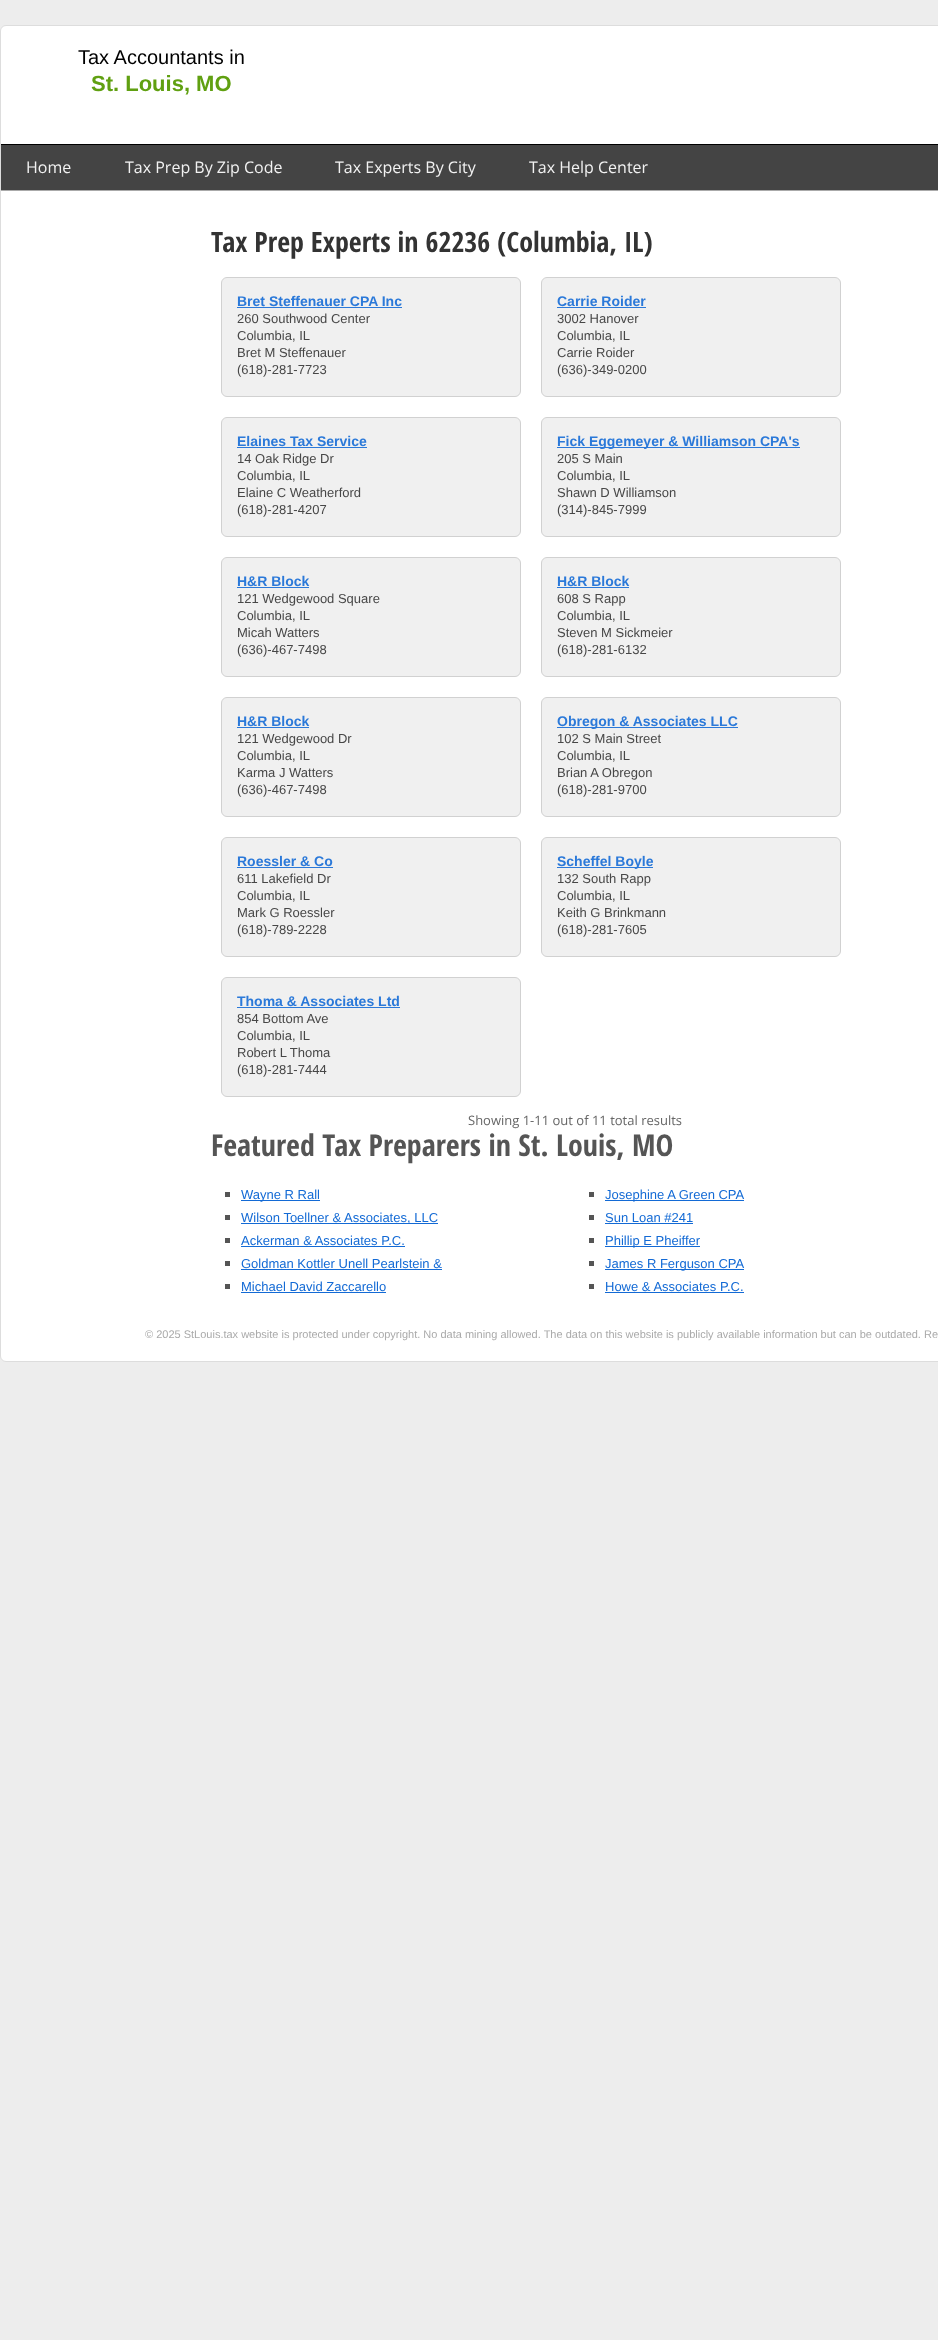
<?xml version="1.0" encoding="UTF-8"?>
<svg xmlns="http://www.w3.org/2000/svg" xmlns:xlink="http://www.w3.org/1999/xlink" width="938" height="2340">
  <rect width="100%" height="100%" fill="#ededed" />
  <rect x="0.5" y="25.5" width="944" height="1336" rx="5.5" fill="#ffffff" stroke="#dddddd" />
  <rect x="1" y="145" width="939" height="46" fill="#aaaaaa" filter="blur(0.5px)" />
  <rect x="1" y="145" width="937" height="45" fill="#444444" />
  <rect x="1" y="144" width="937" height="1" fill="#000000" />
  <rect x="221.5" y="277.5" width="299" height="119" rx="5.5" fill="#f0f0f0" stroke="#d1d1d1" />
  <rect x="237" y="307" width="165" height="1" fill="#2b79d9" />
  <rect x="541.5" y="277.5" width="299" height="119" rx="5.5" fill="#f0f0f0" stroke="#d1d1d1" />
  <rect x="557" y="307" width="89" height="1" fill="#2b79d9" />
  <rect x="221.5" y="417.5" width="299" height="119" rx="5.5" fill="#f0f0f0" stroke="#d1d1d1" />
  <rect x="237" y="447" width="130" height="1" fill="#2b79d9" />
  <rect x="541.5" y="417.5" width="299" height="119" rx="5.5" fill="#f0f0f0" stroke="#d1d1d1" />
  <rect x="557" y="447" width="243" height="1" fill="#2b79d9" />
  <rect x="221.5" y="557.5" width="299" height="119" rx="5.5" fill="#f0f0f0" stroke="#d1d1d1" />
  <rect x="237" y="587" width="72" height="1" fill="#2b79d9" />
  <rect x="541.5" y="557.5" width="299" height="119" rx="5.5" fill="#f0f0f0" stroke="#d1d1d1" />
  <rect x="557" y="587" width="72" height="1" fill="#2b79d9" />
  <rect x="221.5" y="697.5" width="299" height="119" rx="5.5" fill="#f0f0f0" stroke="#d1d1d1" />
  <rect x="237" y="727" width="72" height="1" fill="#2b79d9" />
  <rect x="541.5" y="697.5" width="299" height="119" rx="5.5" fill="#f0f0f0" stroke="#d1d1d1" />
  <rect x="557" y="727" width="181" height="1" fill="#2b79d9" />
  <rect x="221.5" y="837.5" width="299" height="119" rx="5.5" fill="#f0f0f0" stroke="#d1d1d1" />
  <rect x="237" y="867" width="96" height="1" fill="#2b79d9" />
  <rect x="541.5" y="837.5" width="299" height="119" rx="5.5" fill="#f0f0f0" stroke="#d1d1d1" />
  <rect x="557" y="867" width="96" height="1" fill="#2b79d9" />
  <rect x="221.5" y="977.5" width="299" height="119" rx="5.5" fill="#f0f0f0" stroke="#d1d1d1" />
  <rect x="237" y="1007" width="163" height="1" fill="#2b79d9" />
  <rect x="225" y="1192" width="5" height="5" fill="#555555" />
  <rect x="241" y="1200" width="79" height="1" fill="#136ad5" />
  <rect x="225" y="1215" width="5" height="5" fill="#555555" />
  <rect x="241" y="1223" width="197" height="1" fill="#136ad5" />
  <rect x="225" y="1238" width="5" height="5" fill="#555555" />
  <rect x="241" y="1246" width="164" height="1" fill="#136ad5" />
  <rect x="225" y="1261" width="5" height="5" fill="#555555" />
  <rect x="241" y="1269" width="201" height="1" fill="#136ad5" />
  <rect x="225" y="1284" width="5" height="5" fill="#555555" />
  <rect x="241" y="1292" width="145" height="1" fill="#136ad5" />
  <rect x="589" y="1192" width="5" height="5" fill="#555555" />
  <rect x="605" y="1200" width="139" height="1" fill="#136ad5" />
  <rect x="589" y="1215" width="5" height="5" fill="#555555" />
  <rect x="605" y="1223" width="88" height="1" fill="#136ad5" />
  <rect x="589" y="1238" width="5" height="5" fill="#555555" />
  <rect x="605" y="1246" width="95" height="1" fill="#136ad5" />
  <rect x="589" y="1261" width="5" height="5" fill="#555555" />
  <rect x="605" y="1269" width="139" height="1" fill="#136ad5" />
  <rect x="589" y="1284" width="5" height="5" fill="#555555" />
  <rect x="605" y="1292" width="139" height="1" fill="#136ad5" />
  <text x="78" y="64" style="font-family: Liberation Sans; font-size: 20px; fill: #000000">Tax Accountants in</text>
  <text x="91" y="91" style="font-family: Liberation Sans; font-size: 22px; font-weight: bold; fill: #60a011">St. Louis, MO</text>
  <text x="26" y="173" style="font-family: Open Sans; font-size: 16px; fill: #f2f2f2">Home</text>
  <text x="125" y="173" style="font-family: Open Sans; font-size: 16px; fill: #f2f2f2">Tax Prep By Zip Code</text>
  <text x="335" y="173" style="font-family: Open Sans; font-size: 16px; fill: #f2f2f2">Tax Experts By City</text>
  <text x="529" y="173" style="font-family: Open Sans; font-size: 16px; fill: #f2f2f2">Tax Help Center</text>
  <text x="211" y="252" style="font-family: Open Sans Condensed; font-size: 28px; font-weight: bold; fill: #333333">Tax Prep Experts in 62236 (Columbia, IL)</text>
  <text x="237" y="306" style="font-family: Liberation Sans; font-size: 14px; font-weight: bold; fill: #2b79d9">Bret Steffenauer CPA Inc</text>
  <text x="237" y="323" style="font-family: Liberation Sans; font-size: 13px; fill: #474747">260 Southwood Center</text>
  <text x="237" y="340" style="font-family: Liberation Sans; font-size: 13px; fill: #474747">Columbia, IL</text>
  <text x="237" y="357" style="font-family: Liberation Sans; font-size: 13px; fill: #474747">Bret M Steffenauer</text>
  <text x="237" y="374" style="font-family: Liberation Sans; font-size: 13px; fill: #474747">(618)-281-7723</text>
  <text x="557" y="306" style="font-family: Liberation Sans; font-size: 14px; font-weight: bold; fill: #2b79d9">Carrie Roider</text>
  <text x="557" y="323" style="font-family: Liberation Sans; font-size: 13px; fill: #474747">3002 Hanover</text>
  <text x="557" y="340" style="font-family: Liberation Sans; font-size: 13px; fill: #474747">Columbia, IL</text>
  <text x="557" y="357" style="font-family: Liberation Sans; font-size: 13px; fill: #474747">Carrie Roider</text>
  <text x="557" y="374" style="font-family: Liberation Sans; font-size: 13px; fill: #474747">(636)-349-0200</text>
  <text x="237" y="446" style="font-family: Liberation Sans; font-size: 14px; font-weight: bold; fill: #2b79d9">Elaines Tax Service</text>
  <text x="237" y="463" style="font-family: Liberation Sans; font-size: 13px; fill: #474747">14 Oak Ridge Dr</text>
  <text x="237" y="480" style="font-family: Liberation Sans; font-size: 13px; fill: #474747">Columbia, IL</text>
  <text x="237" y="497" style="font-family: Liberation Sans; font-size: 13px; fill: #474747">Elaine C Weatherford</text>
  <text x="237" y="514" style="font-family: Liberation Sans; font-size: 13px; fill: #474747">(618)-281-4207</text>
  <text x="557" y="446" style="font-family: Liberation Sans; font-size: 14px; font-weight: bold; fill: #2b79d9">Fick Eggemeyer &amp; Williamson CPA's</text>
  <text x="557" y="463" style="font-family: Liberation Sans; font-size: 13px; fill: #474747">205 S Main</text>
  <text x="557" y="480" style="font-family: Liberation Sans; font-size: 13px; fill: #474747">Columbia, IL</text>
  <text x="557" y="497" style="font-family: Liberation Sans; font-size: 13px; fill: #474747">Shawn D Williamson</text>
  <text x="557" y="514" style="font-family: Liberation Sans; font-size: 13px; fill: #474747">(314)-845-7999</text>
  <text x="237" y="586" style="font-family: Liberation Sans; font-size: 14px; font-weight: bold; fill: #2b79d9">H&amp;R Block</text>
  <text x="237" y="603" style="font-family: Liberation Sans; font-size: 13px; fill: #474747">121 Wedgewood Square</text>
  <text x="237" y="620" style="font-family: Liberation Sans; font-size: 13px; fill: #474747">Columbia, IL</text>
  <text x="237" y="637" style="font-family: Liberation Sans; font-size: 13px; fill: #474747">Micah Watters</text>
  <text x="237" y="654" style="font-family: Liberation Sans; font-size: 13px; fill: #474747">(636)-467-7498</text>
  <text x="557" y="586" style="font-family: Liberation Sans; font-size: 14px; font-weight: bold; fill: #2b79d9">H&amp;R Block</text>
  <text x="557" y="603" style="font-family: Liberation Sans; font-size: 13px; fill: #474747">608 S Rapp</text>
  <text x="557" y="620" style="font-family: Liberation Sans; font-size: 13px; fill: #474747">Columbia, IL</text>
  <text x="557" y="637" style="font-family: Liberation Sans; font-size: 13px; fill: #474747">Steven M Sickmeier</text>
  <text x="557" y="654" style="font-family: Liberation Sans; font-size: 13px; fill: #474747">(618)-281-6132</text>
  <text x="237" y="726" style="font-family: Liberation Sans; font-size: 14px; font-weight: bold; fill: #2b79d9">H&amp;R Block</text>
  <text x="237" y="743" style="font-family: Liberation Sans; font-size: 13px; fill: #474747">121 Wedgewood Dr</text>
  <text x="237" y="760" style="font-family: Liberation Sans; font-size: 13px; fill: #474747">Columbia, IL</text>
  <text x="237" y="777" style="font-family: Liberation Sans; font-size: 13px; fill: #474747">Karma J Watters</text>
  <text x="237" y="794" style="font-family: Liberation Sans; font-size: 13px; fill: #474747">(636)-467-7498</text>
  <text x="557" y="726" style="font-family: Liberation Sans; font-size: 14px; font-weight: bold; fill: #2b79d9">Obregon &amp; Associates LLC</text>
  <text x="557" y="743" style="font-family: Liberation Sans; font-size: 13px; fill: #474747">102 S Main Street</text>
  <text x="557" y="760" style="font-family: Liberation Sans; font-size: 13px; fill: #474747">Columbia, IL</text>
  <text x="557" y="777" style="font-family: Liberation Sans; font-size: 13px; fill: #474747">Brian A Obregon</text>
  <text x="557" y="794" style="font-family: Liberation Sans; font-size: 13px; fill: #474747">(618)-281-9700</text>
  <text x="237" y="866" style="font-family: Liberation Sans; font-size: 14px; font-weight: bold; fill: #2b79d9">Roessler &amp; Co</text>
  <text x="237" y="883" style="font-family: Liberation Sans; font-size: 13px; fill: #474747">611 Lakefield Dr</text>
  <text x="237" y="900" style="font-family: Liberation Sans; font-size: 13px; fill: #474747">Columbia, IL</text>
  <text x="237" y="917" style="font-family: Liberation Sans; font-size: 13px; fill: #474747">Mark G Roessler</text>
  <text x="237" y="934" style="font-family: Liberation Sans; font-size: 13px; fill: #474747">(618)-789-2228</text>
  <text x="557" y="866" style="font-family: Liberation Sans; font-size: 14px; font-weight: bold; fill: #2b79d9">Scheffel Boyle</text>
  <text x="557" y="883" style="font-family: Liberation Sans; font-size: 13px; fill: #474747">132 South Rapp</text>
  <text x="557" y="900" style="font-family: Liberation Sans; font-size: 13px; fill: #474747">Columbia, IL</text>
  <text x="557" y="917" style="font-family: Liberation Sans; font-size: 13px; fill: #474747">Keith G Brinkmann</text>
  <text x="557" y="934" style="font-family: Liberation Sans; font-size: 13px; fill: #474747">(618)-281-7605</text>
  <text x="237" y="1006" style="font-family: Liberation Sans; font-size: 14px; font-weight: bold; fill: #2b79d9">Thoma &amp; Associates Ltd</text>
  <text x="237" y="1023" style="font-family: Liberation Sans; font-size: 13px; fill: #474747">854 Bottom Ave</text>
  <text x="237" y="1040" style="font-family: Liberation Sans; font-size: 13px; fill: #474747">Columbia, IL</text>
  <text x="237" y="1057" style="font-family: Liberation Sans; font-size: 13px; fill: #474747">Robert L Thoma</text>
  <text x="237" y="1074" style="font-family: Liberation Sans; font-size: 13px; fill: #474747">(618)-281-7444</text>
  <text x="468" y="1125" style="font-family: Open Sans; font-size: 13px; fill: #666666">Showing 1-11 out of 11 total results</text>
  <text x="211" y="1156" style="font-family: Open Sans Condensed; font-size: 30px; font-weight: bold; fill: #555555">Featured Tax Preparers in St. Louis, MO</text>
  <text x="241" y="1199" style="font-family: Liberation Sans; font-size: 13px; fill: #136ad5">Wayne R Rall</text>
  <text x="241" y="1222" style="font-family: Liberation Sans; font-size: 13px; fill: #136ad5">Wilson Toellner &amp; Associates, LLC</text>
  <text x="241" y="1245" style="font-family: Liberation Sans; font-size: 13px; fill: #136ad5">Ackerman &amp; Associates P.C.</text>
  <text x="241" y="1268" style="font-family: Liberation Sans; font-size: 13px; fill: #136ad5">Goldman Kottler Unell Pearlstein &amp;</text>
  <text x="241" y="1291" style="font-family: Liberation Sans; font-size: 13px; fill: #136ad5">Michael David Zaccarello</text>
  <text x="605" y="1199" style="font-family: Liberation Sans; font-size: 13px; fill: #136ad5">Josephine A Green CPA</text>
  <text x="605" y="1222" style="font-family: Liberation Sans; font-size: 13px; fill: #136ad5">Sun Loan #241</text>
  <text x="605" y="1245" style="font-family: Liberation Sans; font-size: 13px; fill: #136ad5">Phillip E Pheiffer</text>
  <text x="605" y="1268" style="font-family: Liberation Sans; font-size: 13px; fill: #136ad5">James R Ferguson CPA</text>
  <text x="605" y="1291" style="font-family: Liberation Sans; font-size: 13px; fill: #136ad5">Howe &amp; Associates P.C.</text>
  <text x="145" y="1338" style="font-family: Liberation Sans; font-size: 11px; fill: #aaaaaa">© 2025 StLouis.tax website is protected under copyright. No data mining allowed. The data on this website is publicly available information but can be outdated. Re</text>
</svg>
